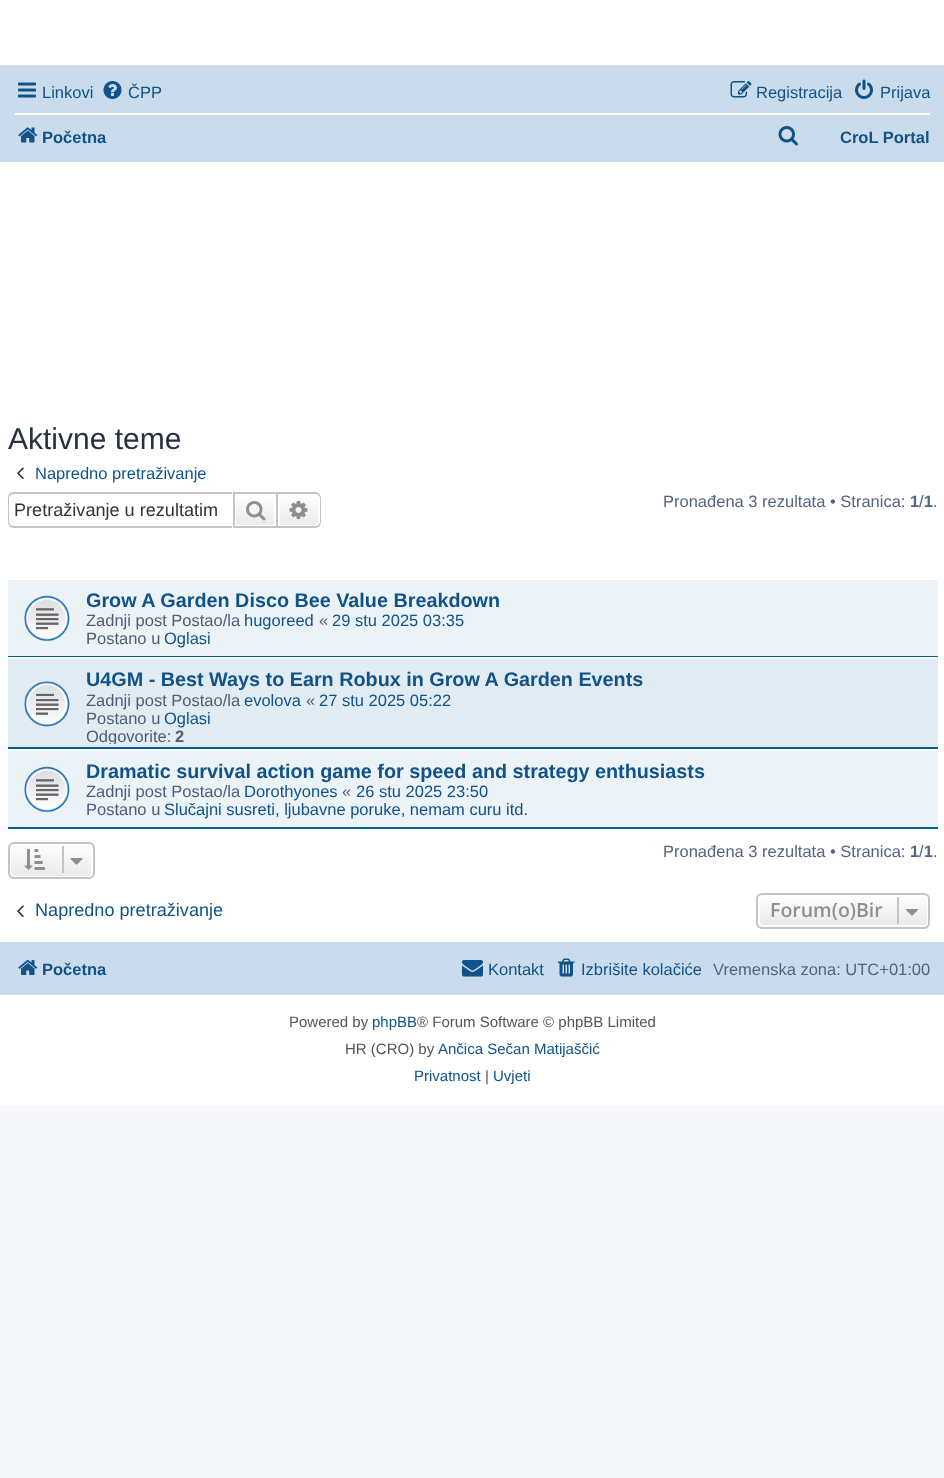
<?xml version="1.0" encoding="UTF-8"?>
<svg xmlns="http://www.w3.org/2000/svg" xmlns:xlink="http://www.w3.org/1999/xlink" width="944" height="1478">
  <defs>
    <linearGradient id="g1" gradientUnits="userSpaceOnUse" x1="255" y1="494" x2="255" y2="527"><stop offset="0" stop-color="#ffffff" /><stop offset="1" stop-color="#e9e9e9" /></linearGradient>
    <linearGradient id="g2" gradientUnits="userSpaceOnUse" x1="299" y1="494" x2="299" y2="527"><stop offset="0" stop-color="#ffffff" /><stop offset="1" stop-color="#e9e9e9" /></linearGradient>
    <clipPath id="clip1"><rect x="8" y="842" width="87" height="37" rx="6" /></clipPath>
    <linearGradient id="g3" gradientUnits="userSpaceOnUse" x1="51" y1="843" x2="51" y2="878"><stop offset="0" stop-color="#ffffff" /><stop offset="1" stop-color="#e9e9e9" /></linearGradient>
    <clipPath id="clip2"><rect x="756" y="893" width="174" height="36" rx="6" /></clipPath>
    <linearGradient id="g4" gradientUnits="userSpaceOnUse" x1="843" y1="894" x2="843" y2="927"><stop offset="0" stop-color="#ffffff" /><stop offset="1" stop-color="#e9e9e9" /></linearGradient>
    <clipPath id="clip3"><rect x="8" y="662" width="930" height="82" /></clipPath>
  </defs>
  <rect width="100%" height="100%" fill="#f5f7fa" />
  <rect width="944" height="1106" fill="#ffffff" />
  <rect y="65" width="944" height="97" fill="#cadceb" />
  <image x="18" y="82" width="18" height="16" xlink:href="image1.png" />
  <image x="103" y="81" width="19" height="18" xlink:href="image2.png" />
  <image x="730" y="81" width="22" height="17" xlink:href="image3.png" />
  <image x="855" y="79" width="18" height="20" xlink:href="image4.png" />
  <rect x="15" y="113" width="915" height="2" fill="#ffffff" />
  <image x="18" y="127" width="20" height="16" xlink:href="image5.png" />
  <image x="778" y="126" width="20" height="20" xlink:href="image6.png" />
  <image x="17" y="467" width="7" height="12" xlink:href="image7.png" />
  <path d="M 14 492 h 218 v 36 h -218 c -4 0 -6 -3 -6 -6 v -24 c 0 -3 2 -6 6 -6 z m 0 2 h 218 v 32 h -218 c -3 0 -5 -2 -5 -4 v -24 c 0 -2 2 -4 5 -4 z" fill="#c7c3bf" fill-rule="evenodd" />
  <rect x="236" y="498" width="38" height="27" fill="url(#g1)" />
  <rect x="234" y="493" width="43" height="34" fill="none" stroke="#c7c3bf" stroke-width="2" />
  <image x="246" y="501" width="20" height="20" xlink:href="image8.png" />
  <path d="M 279 495 h 36 c 2 0 4 2 4 4 v 23 c 0 2 -2 4 -4 4 h -36 z" fill="url(#g2)" stroke="#ffffff" stroke-width="2" />
  <path d="M 278 492 h 37 c 3 0 6 3 6 6 v 24 c 0 3 -3 6 -6 6 h -37 z m 0 2 h 37 c 2 0 5 2 5 4 v 24 c 0 2 -3 4 -5 4 h -37 z" fill="#c7c3bf" fill-rule="evenodd" />
  <image x="289" y="501" width="19" height="18" xlink:href="image9.png" />
  <rect x="8" y="580" width="930" height="76" fill="#ecf3f7" />
  <rect x="8" y="656" width="930" height="1" fill="#00608f" />
  <image x="24" y="595" width="46" height="47" xlink:href="image10.png" />
  <rect x="8" y="659" width="930" height="88" fill="#e1ebf2" />
  <rect x="8" y="747" width="930" height="2" fill="#00608f" />
  <image x="24" y="681" width="46" height="46" xlink:href="image11.png" />
  <rect x="8" y="751" width="930" height="76" fill="#ecf3f7" />
  <rect x="8" y="827" width="930" height="2" fill="#00608f" />
  <image x="24" y="766" width="46" height="47" xlink:href="image10.png" />
  <g clip-path="url(#clip1)">
    <rect x="8" y="843" width="87" height="35" fill="url(#g3)" />
  </g>
  <rect x="10" y="844" width="82" height="33" rx="4" fill="none" stroke="#ffffff" stroke-width="2" />
  <rect x="9" y="843" width="85" height="35" rx="5" fill="none" stroke="#c7c3bf" stroke-width="2" />
  <image x="24" y="849" width="21" height="21" xlink:href="image12.png" />
  <rect x="62" y="846" width="2" height="27" fill="#c7c3bf" />
  <image x="70" y="858" width="13" height="7" xlink:href="image13.png" />
  <image x="17" y="905" width="7" height="12" xlink:href="image7.png" />
  <g clip-path="url(#clip2)">
    <rect x="756" y="894" width="174" height="33" fill="url(#g4)" />
  </g>
  <rect x="759" y="895" width="169" height="31" rx="4" fill="none" stroke="#ffffff" stroke-width="2" />
  <rect x="757" y="894" width="172" height="34" rx="5" fill="none" stroke="#c7c3bf" stroke-width="2" />
  <rect x="897" y="897" width="2" height="27" fill="#c7c3bf" />
  <image x="906" y="909" width="12" height="7" xlink:href="image14.png" />
  <rect y="942" width="944" height="53" fill="#cadceb" />
  <image x="18" y="960" width="20" height="15" xlink:href="image15.png" />
  <image x="462" y="960" width="21" height="17" xlink:href="image16.png" />
  <image x="558" y="958" width="17" height="19" xlink:href="image17.png" />
  <text x="42" y="98" style="font-family: Liberation Sans; font-size: 16.5px; fill: #105289">Linkovi</text>
  <text x="128" y="98" style="font-family: Liberation Sans; font-size: 16.5px; fill: #105289">ČPP</text>
  <text x="756" y="98" style="font-family: Liberation Sans; font-size: 16.5px; fill: #105289">Registracija</text>
  <text x="880" y="98" style="font-family: Liberation Sans; font-size: 16.5px; fill: #105289">Prijava</text>
  <text x="42" y="143" style="font-family: Liberation Sans; font-size: 16.5px; font-weight: bold; fill: #105289">Početna</text>
  <text x="840" y="143" style="font-family: Liberation Sans; font-size: 16.5px; font-weight: bold; fill: #105289">CroL Portal</text>
  <text x="8" y="449" style="font-family: Liberation Sans; font-size: 30px; fill: #28313f">Aktivne teme</text>
  <text x="35" y="479" style="font-family: Liberation Sans; font-size: 16.5px; fill: #105289">Napredno pretraživanje</text>
  <text x="14" y="516" style="font-family: Liberation Sans; font-size: 18.1px; fill: #333333">Pretraživanje u rezultatim</text>
  <text x="663" y="507" style="font-family: Liberation Sans; font-size: 16.5px; fill: #536482">Pronađena 3 rezultata • Stranica:</text>
  <text x="910" y="507" style="font-family: Liberation Sans; font-size: 16.5px; font-weight: bold; fill: #536482">1 1</text>
  <text x="919" y="507" style="font-family: Liberation Sans; font-size: 16.5px; fill: #536482">/</text>
  <text x="933" y="507" style="font-family: Liberation Sans; font-size: 16.5px; fill: #536482">.</text>
  <text x="86" y="607" style="font-family: Liberation Sans; font-size: 19.8px; font-weight: bold; fill: #105289">Grow A Garden Disco Bee Value Breakdown</text>
  <text x="86" y="626" style="font-family: Liberation Sans; font-size: 16.5px; fill: #4c5d77">Zadnji post Postao/la</text>
  <text x="244" y="626" style="font-family: Liberation Sans; font-size: 16.5px; fill: #105289">hugoreed</text>
  <text x="319" y="626" style="font-family: Liberation Sans; font-size: 16.5px; fill: #4c5d77">«</text>
  <text x="332" y="626" style="font-family: Liberation Sans; font-size: 16.5px; fill: #105289">29 stu 2025 03:35</text>
  <text x="86" y="644" style="font-family: Liberation Sans; font-size: 16.5px; fill: #4c5d77">Postano u</text>
  <text x="164" y="644" style="font-family: Liberation Sans; font-size: 16.5px; fill: #105289">Oglasi</text>
  <text x="86" y="686" style="font-family: Liberation Sans; font-size: 19.8px; font-weight: bold; fill: #105289">U4GM - Best Ways to Earn Robux in Grow A Garden Events</text>
  <text x="86" y="706" style="font-family: Liberation Sans; font-size: 16.5px; fill: #4c5d77">Zadnji post Postao/la</text>
  <text x="244" y="706" style="font-family: Liberation Sans; font-size: 16.5px; fill: #105289">evolova</text>
  <text x="306" y="706" style="font-family: Liberation Sans; font-size: 16.5px; fill: #4c5d77">«</text>
  <text x="319" y="706" style="font-family: Liberation Sans; font-size: 16.5px; fill: #105289">27 stu 2025 05:22</text>
  <text x="86" y="724" style="font-family: Liberation Sans; font-size: 16.5px; fill: #4c5d77">Postano u</text>
  <text x="164" y="724" style="font-family: Liberation Sans; font-size: 16.5px; fill: #105289">Oglasi</text>
  <g clip-path="url(#clip3)">
    <text x="86" y="742" style="font-family: Liberation Sans; font-size: 16.5px; fill: #4c5d77">Odgovorite:</text>
  </g>
  <text x="175" y="742" style="font-family: Liberation Sans; font-size: 16.5px; font-weight: bold; fill: #4c5d77">2</text>
  <text x="86" y="778" style="font-family: Liberation Sans; font-size: 19.8px; font-weight: bold; fill: #105289">Dramatic survival action game for speed and strategy enthusiasts</text>
  <text x="86" y="797" style="font-family: Liberation Sans; font-size: 16.5px; fill: #4c5d77">Zadnji post Postao/la</text>
  <text x="244" y="797" style="font-family: Liberation Sans; font-size: 16.5px; fill: #105289">Dorothyones</text>
  <text x="342" y="797" style="font-family: Liberation Sans; font-size: 16.5px; fill: #4c5d77">«</text>
  <text x="356" y="797" style="font-family: Liberation Sans; font-size: 16.5px; fill: #105289">26 stu 2025 23:50</text>
  <text x="86" y="815" style="font-family: Liberation Sans; font-size: 16.5px; fill: #4c5d77">Postano u</text>
  <text x="164" y="815" style="font-family: Liberation Sans; font-size: 16.5px; fill: #105289">Slučajni susreti, ljubavne poruke, nemam curu itd.</text>
  <text x="663" y="857" style="font-family: Liberation Sans; font-size: 16.5px; fill: #536482">Pronađena 3 rezultata • Stranica:</text>
  <text x="910" y="857" style="font-family: Liberation Sans; font-size: 16.5px; font-weight: bold; fill: #536482">1 1</text>
  <text x="919" y="857" style="font-family: Liberation Sans; font-size: 16.5px; fill: #536482">/</text>
  <text x="933" y="857" style="font-family: Liberation Sans; font-size: 16.5px; fill: #536482">.</text>
  <text x="35" y="916" style="font-family: Liberation Sans; font-size: 18.1px; fill: #105289">Napredno pretraživanje</text>
  <text x="770" y="917" style="font-family: Open Sans; font-size: 19.5px; font-weight: 600; fill: #8f8f8f">Forum(o)Bir</text>
  <text x="42" y="975" style="font-family: Liberation Sans; font-size: 16.5px; font-weight: bold; fill: #105289">Početna</text>
  <text x="488" y="975" style="font-family: Liberation Sans; font-size: 16.5px; fill: #105289">Kontakt</text>
  <text x="581" y="975" style="font-family: Liberation Sans; font-size: 16.5px; fill: #105289">Izbrišite kolačiće</text>
  <text x="713" y="975" style="font-family: Liberation Sans; font-size: 16.5px; fill: #536482">Vremenska zona: UTC+01:00</text>
  <text x="289" y="1027" style="font-family: Liberation Sans; font-size: 15px; fill: #555555">Powered by</text>
  <text x="372" y="1027" style="font-family: Liberation Sans; font-size: 15px; fill: #105289">phpBB</text>
  <text x="417" y="1027" style="font-family: Liberation Sans; font-size: 15px; fill: #555555">® Forum Software © phpBB Limited</text>
  <text x="345" y="1054" style="font-family: Liberation Sans; font-size: 15px; fill: #555555">HR (CRO) by</text>
  <text x="438" y="1054" style="font-family: Liberation Sans; font-size: 15px; fill: #105289">Ančica Sečan Matijaščić</text>
  <text x="414" y="1081" style="font-family: Liberation Sans; font-size: 15px; fill: #105289">Privatnost</text>
  <text x="485" y="1081" style="font-family: Liberation Sans; font-size: 15px; fill: #555555">|</text>
  <text x="493" y="1081" style="font-family: Liberation Sans; font-size: 15px; fill: #105289">Uvjeti</text>
</svg>
